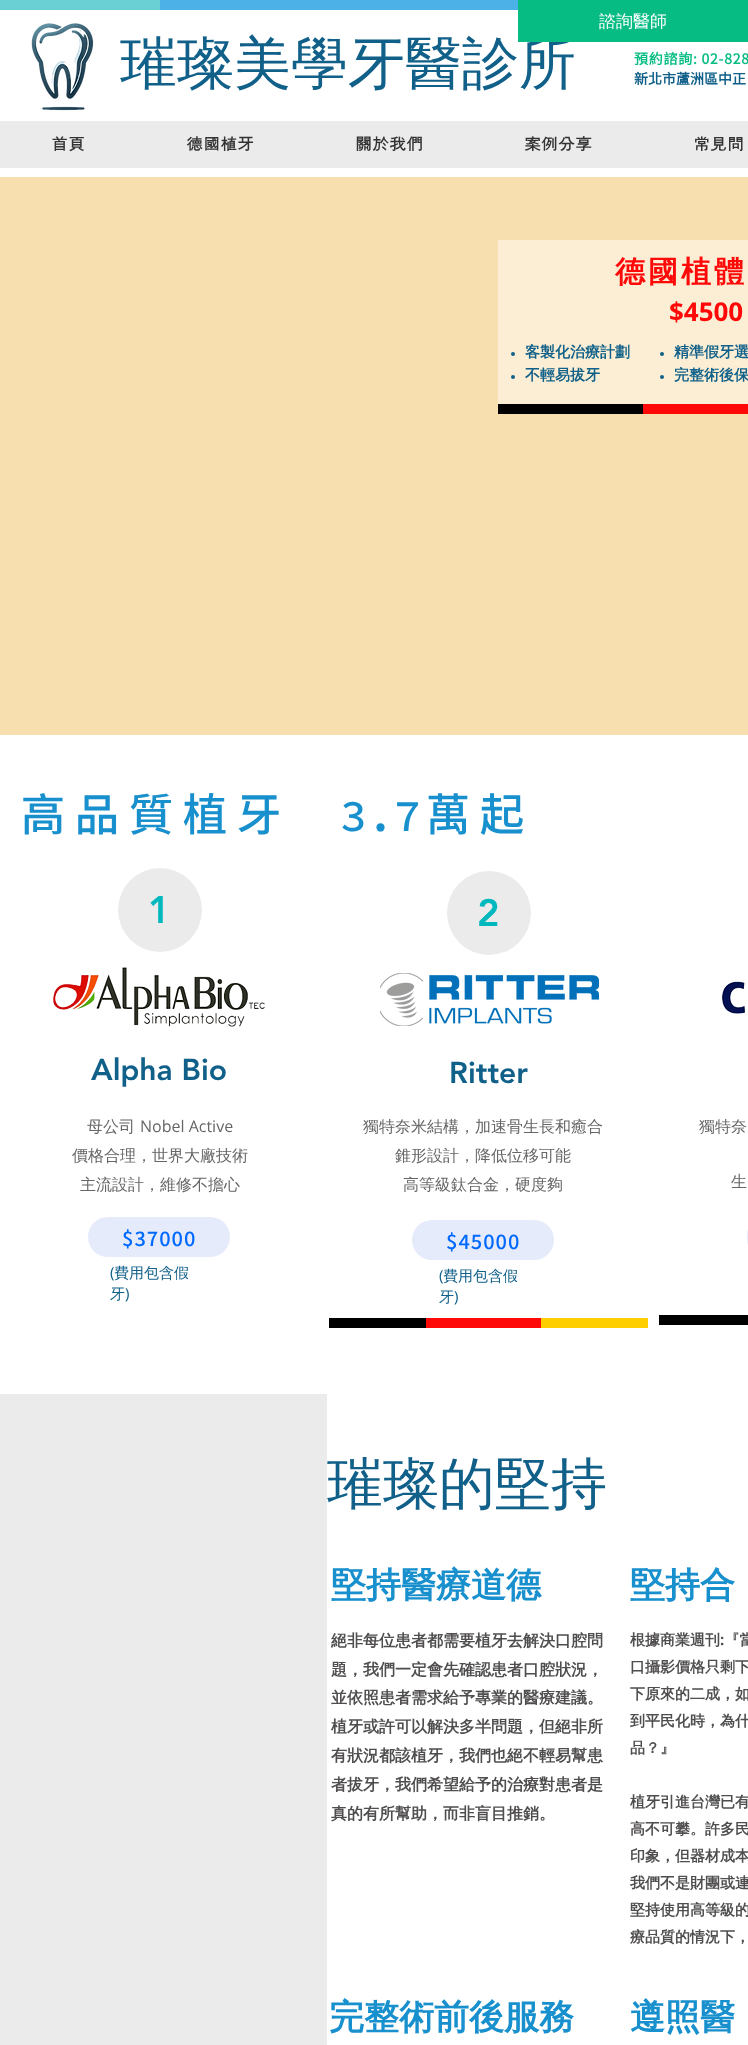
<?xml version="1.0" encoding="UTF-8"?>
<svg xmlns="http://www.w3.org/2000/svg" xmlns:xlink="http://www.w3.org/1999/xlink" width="748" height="2045">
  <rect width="100%" height="100%" fill="#ffffff" />
  <rect width="160" height="10" fill="#6bd0d4" />
  <rect x="160" width="358" height="10" fill="#4cb1e6" />
  <image x="31" y="23" width="63" height="88" xlink:href="image1.png" />
  <rect y="121" width="748" height="47" fill="#ebebeb" />
  <rect y="177" width="748" height="558" fill="#f8dfaf" />
  <rect x="498" y="240" width="250" height="164" fill="#fbeed4" />
  <circle cx="513" cy="354" r="2" fill="#116089" />
  <circle cx="513" cy="377" r="2" fill="#116089" />
  <circle cx="662" cy="354" r="2" fill="#116089" />
  <circle cx="662" cy="377" r="2" fill="#116089" />
  <rect x="498" y="404" width="145" height="10" fill="#000000" />
  <rect x="643" y="404" width="105" height="10" fill="#ff0808" />
  <circle cx="160" cy="910" r="42" fill="#ebebeb" />
  <image x="53" y="967" width="212" height="60" xlink:href="image2.png" />
  <rect x="88" y="1217" width="142" height="40" rx="20" fill="#e5ebfa" />
  <circle cx="489" cy="913" r="42" fill="#ebebeb" />
  <image x="380" y="973" width="219" height="53" xlink:href="image3.png" />
  <rect x="412" y="1220" width="142" height="40" rx="20" fill="#e5ebfa" />
  <rect x="329" y="1318" width="97" height="10" fill="#000000" />
  <rect x="426" y="1318" width="115" height="10" fill="#ff0808" />
  <rect x="541" y="1318" width="107" height="10" fill="#ffce00" />
  <image x="722" y="981" width="23" height="33" xlink:href="image4.png" />
  <rect x="747" y="1217" width="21" height="40" rx="20" fill="#e5ebfa" />
  <rect x="659" y="1315" width="89" height="10" fill="#000000" />
  <rect y="1394" width="327" height="651" fill="#ebebeb" />
  <text x="120" y="83" style="font-family: WenQuanYi Zen Hei; font-size: 57px; font-weight: 500; fill: #116089">璀璨美學牙醫診所</text>
  <rect x="518" width="230" height="42" fill="#07bc83" />
  <text x="599" y="27" style="font-family: WenQuanYi Zen Hei; font-size: 17px; font-weight: 500; fill: #ffffff">諮詢醫師</text>
  <text x="634" y="64" style="font-family: Noto Sans TC; font-size: 14px; font-weight: bold; letter-spacing: 0.75px; fill: #07bc83">預約諮詢: 02-828</text>
  <text x="634" y="84" style="font-family: Noto Sans TC; font-size: 14px; font-weight: bold; fill: #116089">新北市蘆洲區中正</text>
  <text x="51" y="150" style="font-family: Dotum; font-size: 17px; font-weight: bold; fill: #333333">首頁</text>
  <text x="186" y="150" style="font-family: Dotum; font-size: 17px; font-weight: bold; fill: #333333">德國植牙</text>
  <text x="355" y="150" style="font-family: Dotum; font-size: 17px; font-weight: bold; fill: #333333">關於我們</text>
  <text x="524" y="150" style="font-family: Dotum; font-size: 17px; font-weight: bold; fill: #333333">案例分享</text>
  <text x="693" y="150" style="font-family: Dotum; font-size: 17px; font-weight: bold; fill: #333333">常見問</text>
  <text x="615" y="282" style="font-family: WenQuanYi Zen Hei; font-size: 30px; font-weight: bold; letter-spacing: 3px; fill: #ff0808">德國植體</text>
  <text x="669" y="321" style="font-family: Open Sans; font-size: 26px; font-weight: bold; fill: #ff0808">$4500</text>
  <text x="525" y="357" style="font-family: WenQuanYi Zen Hei; font-size: 15px; font-weight: bold; fill: #116089">客製化治療計劃</text>
  <text x="525" y="380" style="font-family: WenQuanYi Zen Hei; font-size: 15px; font-weight: bold; fill: #116089">不輕易拔牙</text>
  <text x="674" y="357" style="font-family: WenQuanYi Zen Hei; font-size: 15px; font-weight: bold; fill: #116089">精準假牙選</text>
  <text x="674" y="380" style="font-family: WenQuanYi Zen Hei; font-size: 15px; font-weight: bold; fill: #116089">完整術後保</text>
  <text x="16" y="831" style="font-family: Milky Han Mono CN; font-size: 45px; font-weight: 500; fill: #1990ce" xml:space="preserve">高品質植牙  3.7萬起</text>
  <text x="148" y="923" style="font-family: 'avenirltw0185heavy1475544'; font-size: 38px; font-weight: 900; fill: #02b8bf">1</text>
  <text x="91" y="1080" style="font-family: 'avenirltw0185heavy1475544'; font-size: 30px; font-weight: 900; fill: #116089">Alpha Bio</text>
  <text x="87" y="1132" style="font-family: WenQuanYi Zen Hei; font-size: 16px; font-weight: 500; fill: #666666">母公司</text>
  <text x="140" y="1132" style="font-family: Open Sans; font-size: 16px; fill: #666666">Nobel Active</text>
  <text x="72" y="1161" style="font-family: WenQuanYi Zen Hei; font-size: 16px; font-weight: 500; fill: #666666">價格合理，世界大廠技術</text>
  <text x="80" y="1190" style="font-family: WenQuanYi Zen Hei; font-size: 16px; font-weight: 500; fill: #666666">主流設計，維修不擔心</text>
  <text x="122" y="1246" style="font-family: Noto Sans TC; font-size: 20px; font-weight: 500; letter-spacing: 1px; fill: #0069ff">$37000</text>
  <text x="110" y="1278" style="font-family: Open Sans; font-size: 15px; fill: #116089">(</text>
  <text x="114" y="1278" style="font-family: WenQuanYi Zen Hei; font-size: 15px; font-weight: 500; fill: #116089">費用包含假</text>
  <text x="110" y="1299" style="font-family: WenQuanYi Zen Hei; font-size: 15px; font-weight: 500; fill: #116089">牙</text>
  <text x="125" y="1299" style="font-family: Open Sans; font-size: 15px; fill: #116089">)</text>
  <text x="477" y="926" style="font-family: 'avenirltw0185heavy1475544'; font-size: 38px; font-weight: 900; fill: #02b8bf">2</text>
  <text x="449" y="1083" style="font-family: 'avenirltw0185heavy1475544'; font-size: 30px; font-weight: 900; fill: #116089">Ritter</text>
  <text x="363" y="1132" style="font-family: WenQuanYi Zen Hei; font-size: 16px; font-weight: 500; fill: #666666">獨特奈米結構，加速骨生長和癒合</text>
  <text x="395" y="1161" style="font-family: WenQuanYi Zen Hei; font-size: 16px; font-weight: 500; fill: #666666">錐形設計，降低位移可能</text>
  <text x="403" y="1190" style="font-family: WenQuanYi Zen Hei; font-size: 16px; font-weight: 500; fill: #666666">高等級鈦合金，硬度夠</text>
  <text x="446" y="1249" style="font-family: Noto Sans TC; font-size: 20px; font-weight: 500; letter-spacing: 1px; fill: #0069ff">$45000</text>
  <text x="439" y="1281" style="font-family: Open Sans; font-size: 15px; fill: #116089">(</text>
  <text x="443" y="1281" style="font-family: WenQuanYi Zen Hei; font-size: 15px; font-weight: 500; fill: #116089">費用包含假</text>
  <text x="439" y="1302" style="font-family: WenQuanYi Zen Hei; font-size: 15px; font-weight: 500; fill: #116089">牙</text>
  <text x="454" y="1302" style="font-family: Open Sans; font-size: 15px; fill: #116089">)</text>
  <text x="699" y="1132" style="font-family: WenQuanYi Zen Hei; font-size: 16px; font-weight: 500; fill: #666666">獨特奈</text>
  <text x="731" y="1187" style="font-family: WenQuanYi Zen Hei; font-size: 16px; font-weight: 500; fill: #666666">生</text>
  <text x="327" y="1503" style="font-family: WenQuanYi Zen Hei; font-size: 56px; font-weight: 500; fill: #116089">璀璨的堅持</text>
  <text x="331" y="1597" style="font-family: WenQuanYi Zen Hei; font-size: 35px; font-weight: bold; fill: #1990ce">堅持醫療道德</text>
  <text x="630" y="1597" style="font-family: WenQuanYi Zen Hei; font-size: 35px; font-weight: bold; fill: #1990ce">堅持合</text>
  <text x="331" y="1646" style="font-family: WenQuanYi Zen Hei; font-size: 16px; font-weight: bold; fill: #4f4d4d">絕非每位患者都需要植牙去解決口腔問</text>
  <text x="331" y="1675" style="font-family: WenQuanYi Zen Hei; font-size: 16px; font-weight: bold; fill: #4f4d4d">題，我們一定會先確認患者口腔狀況，</text>
  <text x="331" y="1703" style="font-family: WenQuanYi Zen Hei; font-size: 16px; font-weight: bold; fill: #4f4d4d">並依照患者需求給予專業的醫療建議。</text>
  <text x="331" y="1732" style="font-family: WenQuanYi Zen Hei; font-size: 16px; font-weight: bold; fill: #4f4d4d">植牙或許可以解決多半問題，但絕非所</text>
  <text x="331" y="1761" style="font-family: WenQuanYi Zen Hei; font-size: 16px; font-weight: bold; fill: #4f4d4d">有狀況都該植牙，我們也絕不輕易幫患</text>
  <text x="331" y="1790" style="font-family: WenQuanYi Zen Hei; font-size: 16px; font-weight: bold; fill: #4f4d4d">者拔牙，我們希望給予的治療對患者是</text>
  <text x="331" y="1819" style="font-family: WenQuanYi Zen Hei; font-size: 16px; font-weight: bold; fill: #4f4d4d">真的有所幫助，而非盲目推銷。</text>
  <text x="630" y="1645" style="font-family: WenQuanYi Zen Hei; font-size: 15px; font-weight: bold; fill: #4f4d4d">根據商業週刊 『當</text>
  <text x="720" y="1645" style="font-family: Open Sans; font-size: 15px; font-weight: bold; fill: #4f4d4d">:</text>
  <text x="630" y="1672" style="font-family: WenQuanYi Zen Hei; font-size: 15px; font-weight: bold; fill: #4f4d4d">口攝影價格只剩下</text>
  <text x="630" y="1699" style="font-family: WenQuanYi Zen Hei; font-size: 15px; font-weight: bold; fill: #4f4d4d">下原來的二成，如</text>
  <text x="630" y="1726" style="font-family: WenQuanYi Zen Hei; font-size: 15px; font-weight: bold; fill: #4f4d4d">到平民化時，為什</text>
  <text x="630" y="1753" style="font-family: WenQuanYi Zen Hei; font-size: 15px; font-weight: bold; fill: #4f4d4d">品？』</text>
  <text x="630" y="1807" style="font-family: WenQuanYi Zen Hei; font-size: 15px; font-weight: bold; fill: #4f4d4d">植牙引進台灣已有</text>
  <text x="630" y="1834" style="font-family: WenQuanYi Zen Hei; font-size: 15px; font-weight: bold; fill: #4f4d4d">高不可攀。許多民</text>
  <text x="630" y="1861" style="font-family: WenQuanYi Zen Hei; font-size: 15px; font-weight: bold; fill: #4f4d4d">印象，但器材成本</text>
  <text x="630" y="1888" style="font-family: WenQuanYi Zen Hei; font-size: 15px; font-weight: bold; fill: #4f4d4d">我們不是財團或連</text>
  <text x="630" y="1915" style="font-family: WenQuanYi Zen Hei; font-size: 15px; font-weight: bold; fill: #4f4d4d">堅持使用高等級的</text>
  <text x="630" y="1942" style="font-family: WenQuanYi Zen Hei; font-size: 15px; font-weight: bold; fill: #4f4d4d">療品質的情況下，</text>
  <text x="329" y="2029" style="font-family: WenQuanYi Zen Hei; font-size: 35px; font-weight: bold; fill: #1990ce">完整術前後服務</text>
  <text x="630" y="2029" style="font-family: WenQuanYi Zen Hei; font-size: 35px; font-weight: bold; fill: #1990ce">遵照醫</text>
</svg>
